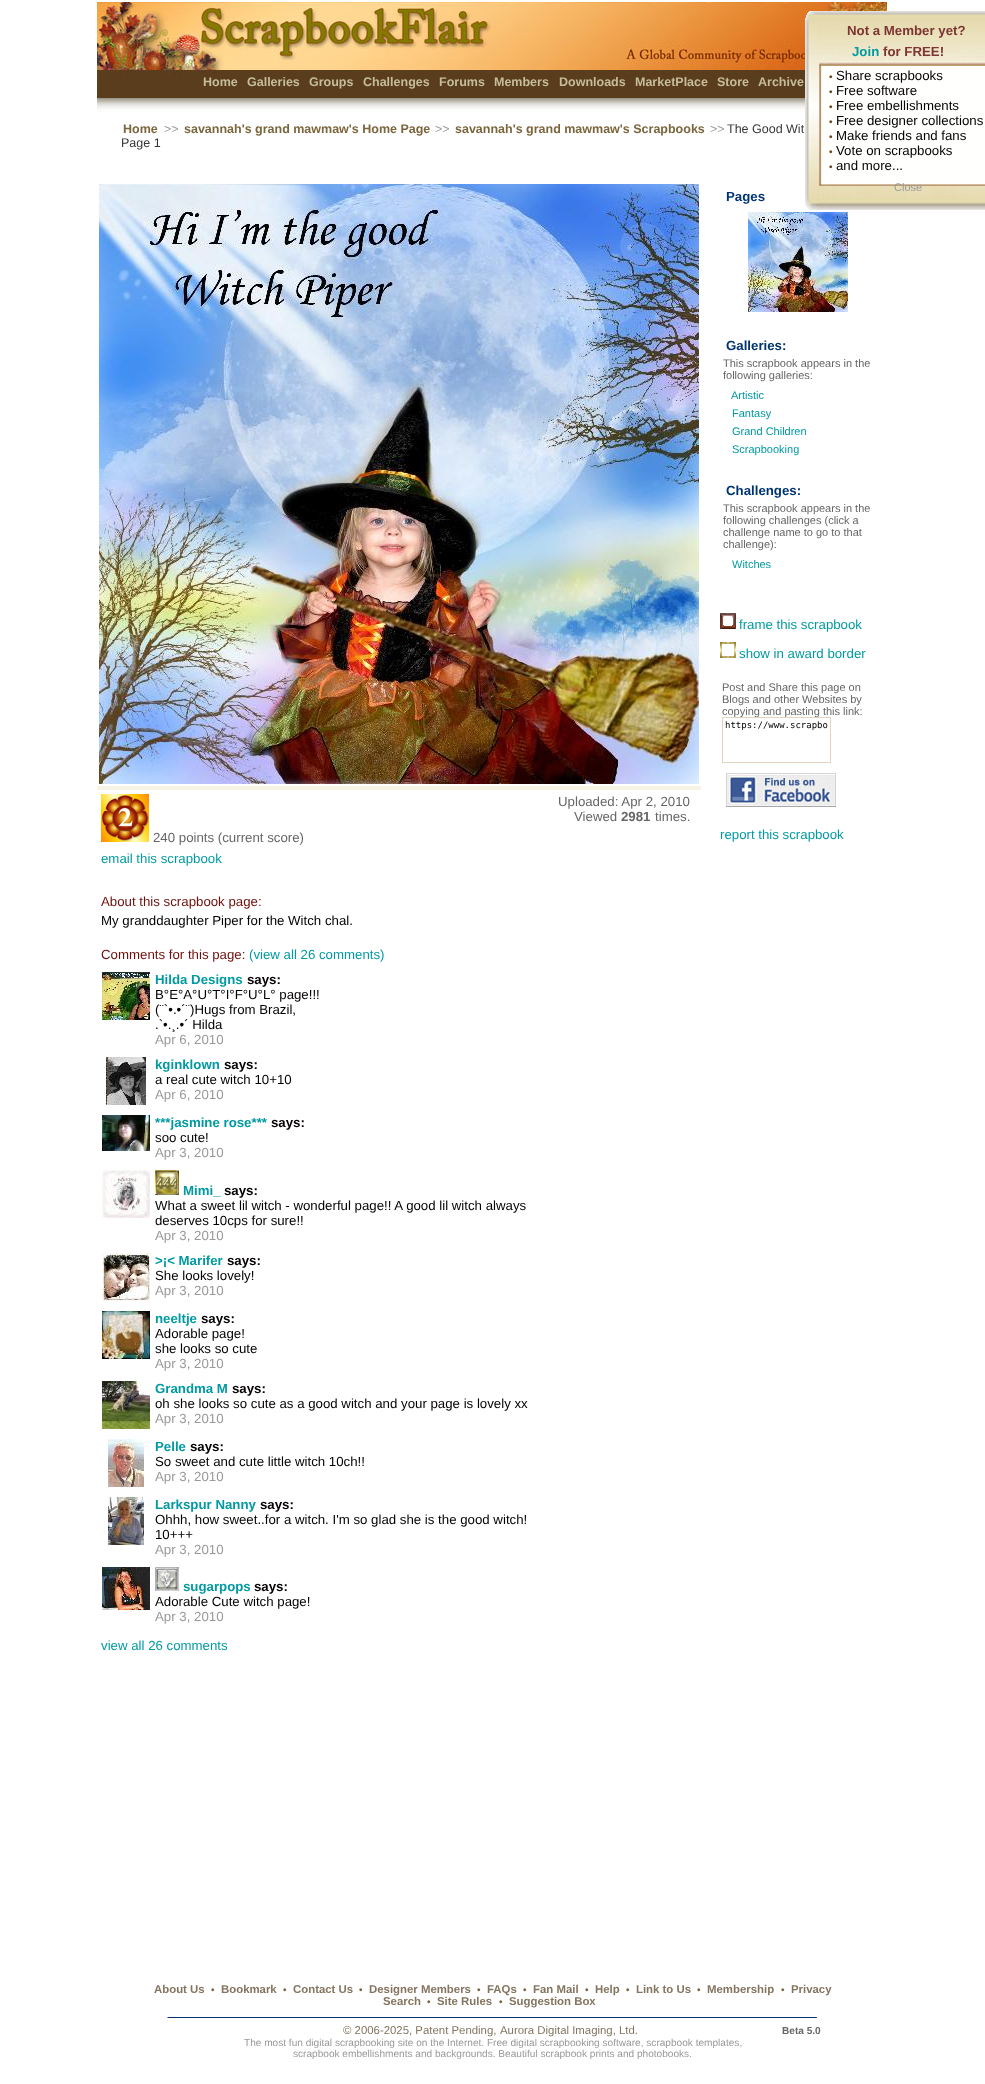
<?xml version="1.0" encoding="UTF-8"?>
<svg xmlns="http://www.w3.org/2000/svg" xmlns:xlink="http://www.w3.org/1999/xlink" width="985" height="2084">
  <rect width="100%" height="100%" fill="#ffffff" />
  <image x="97" y="2" width="790" height="110" xlink:href="image1.png" />
  <image x="748" y="212" width="100" height="100" xlink:href="image2.png" />
  <image x="720" y="613" width="16" height="16" xlink:href="image3.png" />
  <image x="720" y="642" width="16" height="16" xlink:href="image4.png" />
  <image x="726" y="773" width="110" height="34" xlink:href="image5.png" />
  <image x="99" y="184" width="600" height="600" xlink:href="image6.png" />
  <rect x="97" y="786" width="604" height="4" fill="#f7f4e5" />
  <image x="101" y="794" width="48" height="48" xlink:href="image7.png" />
  <image x="102" y="972" width="48" height="48" xlink:href="image8.png" />
  <image x="106" y="1057" width="40" height="48" xlink:href="image9.png" />
  <image x="102" y="1115" width="48" height="36" xlink:href="image10.png" />
  <image x="102" y="1170" width="48" height="48" xlink:href="image11.png" />
  <image x="155" y="1170" width="24" height="25" xlink:href="image12.png" />
  <image x="102" y="1253" width="48" height="48" xlink:href="image13.png" />
  <image x="102" y="1311" width="48" height="48" xlink:href="image14.png" />
  <image x="102" y="1381" width="48" height="48" xlink:href="image15.png" />
  <image x="108" y="1439" width="36" height="48" xlink:href="image16.png" />
  <image x="108" y="1497" width="36" height="48" xlink:href="image17.png" />
  <image x="102" y="1567" width="48" height="43" xlink:href="image18.png" />
  <image x="155" y="1567" width="24" height="24" xlink:href="image19.png" />
  <image x="167" y="2017" width="650" height="1" xlink:href="image20.png" />
  <image x="805" y="11" width="180" height="199" xlink:href="image21.png" />
  <text x="203" y="86" style="font-family: Liberation Sans; font-size: 12.5px; font-weight: bold; fill: #c6bd9c">Home</text>
  <text x="247" y="86" style="font-family: Liberation Sans; font-size: 12.5px; font-weight: bold; fill: #c6bd9c">Galleries</text>
  <text x="309" y="86" style="font-family: Liberation Sans; font-size: 12.5px; font-weight: bold; fill: #c6bd9c">Groups</text>
  <text x="363" y="86" style="font-family: Liberation Sans; font-size: 12.5px; font-weight: bold; fill: #c6bd9c">Challenges</text>
  <text x="439" y="86" style="font-family: Liberation Sans; font-size: 12.5px; font-weight: bold; fill: #c6bd9c">Forums</text>
  <text x="494" y="86" style="font-family: Liberation Sans; font-size: 12.5px; font-weight: bold; fill: #c6bd9c">Members</text>
  <text x="559" y="86" style="font-family: Liberation Sans; font-size: 12.5px; font-weight: bold; fill: #c6bd9c">Downloads</text>
  <text x="635" y="86" style="font-family: Liberation Sans; font-size: 12.5px; font-weight: bold; fill: #c6bd9c">MarketPlace</text>
  <text x="717" y="86" style="font-family: Liberation Sans; font-size: 12.5px; font-weight: bold; fill: #c6bd9c">Store</text>
  <text x="758" y="86" style="font-family: Liberation Sans; font-size: 12.5px; font-weight: bold; fill: #c6bd9c">Archive</text>
  <text x="123" y="133" style="font-family: Liberation Sans; font-size: 12.5px; font-weight: bold; fill: #7b653c">Home</text>
  <text x="164" y="133" style="font-family: Liberation Sans; font-size: 12.5px; fill: #999999">&gt;&gt;</text>
  <text x="184" y="133" style="font-family: Liberation Sans; font-size: 12.5px; font-weight: bold; fill: #7b653c">savannah's grand mawmaw's Home Page</text>
  <text x="435" y="133" style="font-family: Liberation Sans; font-size: 12.5px; fill: #999999">&gt;&gt;</text>
  <text x="455" y="133" style="font-family: Liberation Sans; font-size: 12.5px; font-weight: bold; fill: #7b653c">savannah's grand mawmaw's Scrapbooks</text>
  <text x="710" y="133" style="font-family: Liberation Sans; font-size: 12.5px; fill: #999999">&gt;&gt;</text>
  <text x="727" y="133" style="font-family: Liberation Sans; font-size: 12.5px; fill: #363636">The Good Wit</text>
  <text x="121" y="147" style="font-family: Liberation Sans; font-size: 12.5px; fill: #363636">Page 1</text>
  <text x="726" y="201" style="font-family: Liberation Sans; font-size: 13.25px; font-weight: bold; fill: #003470">Pages</text>
  <text x="726" y="350" style="font-family: Liberation Sans; font-size: 13.25px; font-weight: bold; fill: #003470">Galleries:</text>
  <text x="723" y="367" style="font-family: Liberation Sans; font-size: 11px; fill: #666666">This scrapbook appears in the</text>
  <text x="723" y="379" style="font-family: Liberation Sans; font-size: 11px; fill: #666666">following galleries:</text>
  <text x="731" y="399" style="font-family: Liberation Sans; font-size: 11px; fill: #019aa2">Artistic</text>
  <text x="732" y="417" style="font-family: Liberation Sans; font-size: 11px; fill: #019aa2">Fantasy</text>
  <text x="732" y="435" style="font-family: Liberation Sans; font-size: 11px; fill: #019aa2">Grand Children</text>
  <text x="732" y="453" style="font-family: Liberation Sans; font-size: 11px; fill: #019aa2">Scrapbooking</text>
  <text x="726" y="495" style="font-family: Liberation Sans; font-size: 13.25px; font-weight: bold; fill: #003470">Challenges:</text>
  <text x="723" y="512" style="font-family: Liberation Sans; font-size: 11px; fill: #666666">This scrapbook appears in the</text>
  <text x="723" y="524" style="font-family: Liberation Sans; font-size: 11px; fill: #666666">following challenges (click a</text>
  <text x="723" y="536" style="font-family: Liberation Sans; font-size: 11px; fill: #666666">challenge name to go to that</text>
  <text x="723" y="548" style="font-family: Liberation Sans; font-size: 11px; fill: #666666">challenge):</text>
  <text x="732" y="568" style="font-family: Liberation Sans; font-size: 11px; fill: #019aa2">Witches</text>
  <text x="739" y="629" style="font-family: Liberation Sans; font-size: 13.25px; fill: #019aa2">frame this scrapbook</text>
  <text x="739" y="658" style="font-family: Liberation Sans; font-size: 13.25px; fill: #019aa2">show in award border</text>
  <text x="722" y="691" style="font-family: Liberation Sans; font-size: 11px; fill: #666666">Post and Share this page on</text>
  <text x="722" y="703" style="font-family: Liberation Sans; font-size: 11px; fill: #666666">Blogs and other Websites by</text>
  <text x="722" y="715" style="font-family: Liberation Sans; font-size: 11px; fill: #666666">copying and pasting this link:</text>
  <rect x="722.5" y="717.5" width="108" height="45" fill="none" stroke="#e1d4c0" />
  <text x="725" y="728" style="font-family: DejaVu Sans Mono; font-size: 9px; fill: #040001">https://www.scrapbo</text>
  <text x="720" y="839" style="font-family: Liberation Sans; font-size: 13.25px; fill: #019aa2">report this scrapbook</text>
  <text x="558" y="806" style="font-family: Liberation Sans; font-size: 13.25px; fill: #666666">Uploaded: Apr 2, 2010</text>
  <text x="574" y="821" style="font-family: Liberation Sans; font-size: 13.25px; fill: #666666">Viewed</text>
  <text x="621" y="821" style="font-family: Liberation Sans; font-size: 13.25px; font-weight: bold; fill: #666666">2981</text>
  <text x="655" y="821" style="font-family: Liberation Sans; font-size: 13.25px; fill: #666666">times.</text>
  <text x="153" y="842" style="font-family: Liberation Sans; font-size: 13.25px; fill: #666666">240 points (current score)</text>
  <text x="101" y="863" style="font-family: Liberation Sans; font-size: 13.25px; fill: #019aa2">email this scrapbook</text>
  <text x="101" y="906" style="font-family: Liberation Sans; font-size: 13.25px; fill: #6e0f0b">About this scrapbook page:</text>
  <text x="101" y="925" style="font-family: Liberation Sans; font-size: 13.25px; fill: #040001">My granddaughter Piper for the Witch chal.</text>
  <text x="101" y="959" style="font-family: Liberation Sans; font-size: 13.25px; fill: #6e0f0b">Comments for this page:</text>
  <text x="249" y="959" style="font-family: Liberation Sans; font-size: 13.25px; fill: #019aa2">(view all 26 comments)</text>
  <text x="155" y="984" style="font-family: Liberation Sans; font-size: 13.25px; font-weight: bold; fill: #019aa2">Hilda Designs</text>
  <text x="247" y="984" style="font-family: Liberation Sans; font-size: 13.25px; font-weight: bold; fill: #040001">says:</text>
  <text x="155" y="999" style="font-family: Liberation Sans; font-size: 13.25px; fill: #040001">B°E°A°U°T°I°F°U°L° page!!!</text>
  <text x="155" y="1014" style="font-family: Liberation Sans; font-size: 13.25px; fill: #040001">(¨`•.•´¨)Hugs from Brazil,</text>
  <text x="155" y="1029" style="font-family: Liberation Sans; font-size: 13.25px; fill: #040001">.`•.¸.•´ Hilda</text>
  <text x="155" y="1044" style="font-family: Liberation Sans; font-size: 13.25px; fill: #999999">Apr 6, 2010</text>
  <text x="155" y="1069" style="font-family: Liberation Sans; font-size: 13.25px; font-weight: bold; fill: #019aa2">kginklown</text>
  <text x="224" y="1069" style="font-family: Liberation Sans; font-size: 13.25px; font-weight: bold; fill: #040001">says:</text>
  <text x="155" y="1084" style="font-family: Liberation Sans; font-size: 13.25px; fill: #040001">a real cute witch 10+10</text>
  <text x="155" y="1099" style="font-family: Liberation Sans; font-size: 13.25px; fill: #999999">Apr 6, 2010</text>
  <text x="155" y="1127" style="font-family: Liberation Sans; font-size: 13.25px; font-weight: bold; fill: #019aa2">***jasmine rose***</text>
  <text x="271" y="1127" style="font-family: Liberation Sans; font-size: 13.25px; font-weight: bold; fill: #040001">says:</text>
  <text x="155" y="1142" style="font-family: Liberation Sans; font-size: 13.25px; fill: #040001">soo cute!</text>
  <text x="155" y="1157" style="font-family: Liberation Sans; font-size: 13.25px; fill: #999999">Apr 3, 2010</text>
  <text x="183" y="1195" style="font-family: Liberation Sans; font-size: 13.25px; font-weight: bold; fill: #019aa2">Mimi_</text>
  <text x="224" y="1195" style="font-family: Liberation Sans; font-size: 13.25px; font-weight: bold; fill: #040001">says:</text>
  <text x="155" y="1210" style="font-family: Liberation Sans; font-size: 13.25px; fill: #040001">What a sweet lil witch - wonderful page!! A good lil witch always</text>
  <text x="155" y="1225" style="font-family: Liberation Sans; font-size: 13.25px; fill: #040001">deserves 10cps for sure!!</text>
  <text x="155" y="1240" style="font-family: Liberation Sans; font-size: 13.25px; fill: #999999">Apr 3, 2010</text>
  <text x="155" y="1265" style="font-family: Liberation Sans; font-size: 13.25px; font-weight: bold; fill: #019aa2">&gt;¡&lt; Marifer</text>
  <text x="227" y="1265" style="font-family: Liberation Sans; font-size: 13.25px; font-weight: bold; fill: #040001">says:</text>
  <text x="155" y="1280" style="font-family: Liberation Sans; font-size: 13.25px; fill: #040001">She looks lovely!</text>
  <text x="155" y="1295" style="font-family: Liberation Sans; font-size: 13.25px; fill: #999999">Apr 3, 2010</text>
  <text x="155" y="1323" style="font-family: Liberation Sans; font-size: 13.25px; font-weight: bold; fill: #019aa2">neeltje</text>
  <text x="201" y="1323" style="font-family: Liberation Sans; font-size: 13.25px; font-weight: bold; fill: #040001">says:</text>
  <text x="155" y="1338" style="font-family: Liberation Sans; font-size: 13.25px; fill: #040001">Adorable page!</text>
  <text x="155" y="1353" style="font-family: Liberation Sans; font-size: 13.25px; fill: #040001">she looks so cute</text>
  <text x="155" y="1368" style="font-family: Liberation Sans; font-size: 13.25px; fill: #999999">Apr 3, 2010</text>
  <text x="155" y="1393" style="font-family: Liberation Sans; font-size: 13.25px; font-weight: bold; fill: #019aa2">Grandma M</text>
  <text x="232" y="1393" style="font-family: Liberation Sans; font-size: 13.25px; font-weight: bold; fill: #040001">says:</text>
  <text x="155" y="1408" style="font-family: Liberation Sans; font-size: 13.25px; fill: #040001">oh she looks so cute as a good witch and your page is lovely xx</text>
  <text x="155" y="1423" style="font-family: Liberation Sans; font-size: 13.25px; fill: #999999">Apr 3, 2010</text>
  <text x="155" y="1451" style="font-family: Liberation Sans; font-size: 13.25px; font-weight: bold; fill: #019aa2">Pelle</text>
  <text x="190" y="1451" style="font-family: Liberation Sans; font-size: 13.25px; font-weight: bold; fill: #040001">says:</text>
  <text x="155" y="1466" style="font-family: Liberation Sans; font-size: 13.25px; fill: #040001">So sweet and cute little witch 10ch!!</text>
  <text x="155" y="1481" style="font-family: Liberation Sans; font-size: 13.25px; fill: #999999">Apr 3, 2010</text>
  <text x="155" y="1509" style="font-family: Liberation Sans; font-size: 13.25px; font-weight: bold; fill: #019aa2">Larkspur Nanny</text>
  <text x="260" y="1509" style="font-family: Liberation Sans; font-size: 13.25px; font-weight: bold; fill: #040001">says:</text>
  <text x="155" y="1524" style="font-family: Liberation Sans; font-size: 13.25px; fill: #040001">Ohhh, how sweet..for a witch. I'm so glad she is the good witch!</text>
  <text x="155" y="1539" style="font-family: Liberation Sans; font-size: 13.25px; fill: #040001">10+++</text>
  <text x="155" y="1554" style="font-family: Liberation Sans; font-size: 13.25px; fill: #999999">Apr 3, 2010</text>
  <text x="183" y="1591" style="font-family: Liberation Sans; font-size: 13.25px; font-weight: bold; fill: #019aa2">sugarpops</text>
  <text x="254" y="1591" style="font-family: Liberation Sans; font-size: 13.25px; font-weight: bold; fill: #040001">says:</text>
  <text x="155" y="1606" style="font-family: Liberation Sans; font-size: 13.25px; fill: #040001">Adorable Cute witch page!</text>
  <text x="155" y="1621" style="font-family: Liberation Sans; font-size: 13.25px; fill: #999999">Apr 3, 2010</text>
  <text x="101" y="1650" style="font-family: Liberation Sans; font-size: 13.25px; fill: #019aa2">view all 26 comments</text>
  <text x="154" y="1993" style="font-family: Liberation Sans; font-size: 11.4px; font-weight: bold; fill: #847560">About Us</text>
  <text x="211" y="1993" style="font-family: Liberation Sans; font-size: 10px; font-weight: bold; fill: #7b653c">•</text>
  <text x="221" y="1993" style="font-family: Liberation Sans; font-size: 11.4px; font-weight: bold; fill: #847560">Bookmark</text>
  <text x="283" y="1993" style="font-family: Liberation Sans; font-size: 10px; font-weight: bold; fill: #7b653c">•</text>
  <text x="293" y="1993" style="font-family: Liberation Sans; font-size: 11.4px; font-weight: bold; fill: #847560">Contact Us</text>
  <text x="359" y="1993" style="font-family: Liberation Sans; font-size: 10px; font-weight: bold; fill: #7b653c">•</text>
  <text x="369" y="1993" style="font-family: Liberation Sans; font-size: 11.4px; font-weight: bold; fill: #847560">Designer Members</text>
  <text x="477" y="1993" style="font-family: Liberation Sans; font-size: 10px; font-weight: bold; fill: #7b653c">•</text>
  <text x="487" y="1993" style="font-family: Liberation Sans; font-size: 11.4px; font-weight: bold; fill: #847560">FAQs</text>
  <text x="523" y="1993" style="font-family: Liberation Sans; font-size: 10px; font-weight: bold; fill: #7b653c">•</text>
  <text x="533" y="1993" style="font-family: Liberation Sans; font-size: 11.4px; font-weight: bold; fill: #847560">Fan Mail</text>
  <text x="585" y="1993" style="font-family: Liberation Sans; font-size: 10px; font-weight: bold; fill: #7b653c">•</text>
  <text x="595" y="1993" style="font-family: Liberation Sans; font-size: 11.4px; font-weight: bold; fill: #847560">Help</text>
  <text x="626" y="1993" style="font-family: Liberation Sans; font-size: 10px; font-weight: bold; fill: #7b653c">•</text>
  <text x="636" y="1993" style="font-family: Liberation Sans; font-size: 11.4px; font-weight: bold; fill: #847560">Link to Us</text>
  <text x="697" y="1993" style="font-family: Liberation Sans; font-size: 10px; font-weight: bold; fill: #7b653c">•</text>
  <text x="707" y="1993" style="font-family: Liberation Sans; font-size: 11.4px; font-weight: bold; fill: #847560">Membership</text>
  <text x="781" y="1993" style="font-family: Liberation Sans; font-size: 10px; font-weight: bold; fill: #7b653c">•</text>
  <text x="791" y="1993" style="font-family: Liberation Sans; font-size: 11.4px; font-weight: bold; fill: #847560">Privacy</text>
  <text x="383" y="2005" style="font-family: Liberation Sans; font-size: 11.4px; font-weight: bold; fill: #847560">Search</text>
  <text x="427" y="2005" style="font-family: Liberation Sans; font-size: 10px; font-weight: bold; fill: #7b653c">•</text>
  <text x="437" y="2005" style="font-family: Liberation Sans; font-size: 11.4px; font-weight: bold; fill: #847560">Site Rules</text>
  <text x="499" y="2005" style="font-family: Liberation Sans; font-size: 10px; font-weight: bold; fill: #7b653c">•</text>
  <text x="509" y="2005" style="font-family: Liberation Sans; font-size: 11.4px; font-weight: bold; fill: #847560">Suggestion Box</text>
  <text x="343" y="2034" style="font-family: Liberation Sans; font-size: 11.4px; fill: #847560">© 2006-2025, Patent Pending,</text>
  <text x="500" y="2034" style="font-family: Liberation Sans; font-size: 11.4px; fill: #847560">Aurora Digital Imaging, Ltd.</text>
  <text x="782" y="2034" style="font-family: Liberation Sans; font-size: 10.1px; font-weight: bold; fill: #666666">Beta 5.0</text>
  <text x="244" y="2046" style="font-family: Liberation Sans; font-size: 10.1px; fill: #999999">The most fun digital scrapbooking site on the Internet. Free digital scrapbooking software, scrapbook templates,</text>
  <text x="293" y="2057" style="font-family: Liberation Sans; font-size: 10.1px; fill: #999999">scrapbook embellishments and backgrounds. Beautiful scrapbook prints and photobooks.</text>
  <text x="847" y="35" style="font-family: Liberation Sans; font-size: 13.25px; font-weight: bold; fill: #7c3533">Not a Member yet?</text>
  <text x="852" y="56" style="font-family: Liberation Sans; font-size: 13.25px; font-weight: bold; fill: #019aa2">Join</text>
  <text x="883" y="56" style="font-family: Liberation Sans; font-size: 13.25px; font-weight: bold; fill: #7c3533">for FREE!</text>
  <text x="829" y="80" style="font-family: Liberation Sans; font-size: 10px; font-weight: bold; fill: #694620">•</text>
  <text x="836" y="80" style="font-family: Liberation Sans; font-size: 13.25px; fill: #040001">Share scrapbooks</text>
  <text x="829" y="95" style="font-family: Liberation Sans; font-size: 10px; font-weight: bold; fill: #694620">•</text>
  <text x="836" y="95" style="font-family: Liberation Sans; font-size: 13.25px; fill: #040001">Free software</text>
  <text x="829" y="110" style="font-family: Liberation Sans; font-size: 10px; font-weight: bold; fill: #694620">•</text>
  <text x="836" y="110" style="font-family: Liberation Sans; font-size: 13.25px; fill: #040001">Free embellishments</text>
  <text x="829" y="125" style="font-family: Liberation Sans; font-size: 10px; font-weight: bold; fill: #694620">•</text>
  <text x="836" y="125" style="font-family: Liberation Sans; font-size: 13.25px; fill: #040001">Free designer collections</text>
  <text x="829" y="140" style="font-family: Liberation Sans; font-size: 10px; font-weight: bold; fill: #694620">•</text>
  <text x="836" y="140" style="font-family: Liberation Sans; font-size: 13.25px; fill: #040001">Make friends and fans</text>
  <text x="829" y="155" style="font-family: Liberation Sans; font-size: 10px; font-weight: bold; fill: #694620">•</text>
  <text x="836" y="155" style="font-family: Liberation Sans; font-size: 13.25px; fill: #040001">Vote on scrapbooks</text>
  <text x="829" y="170" style="font-family: Liberation Sans; font-size: 10px; font-weight: bold; fill: #694620">•</text>
  <text x="836" y="170" style="font-family: Liberation Sans; font-size: 13.25px; fill: #040001">and more...</text>
  <text x="894" y="191" style="font-family: Liberation Sans; font-size: 11px; fill: #999999">Close</text>
</svg>
